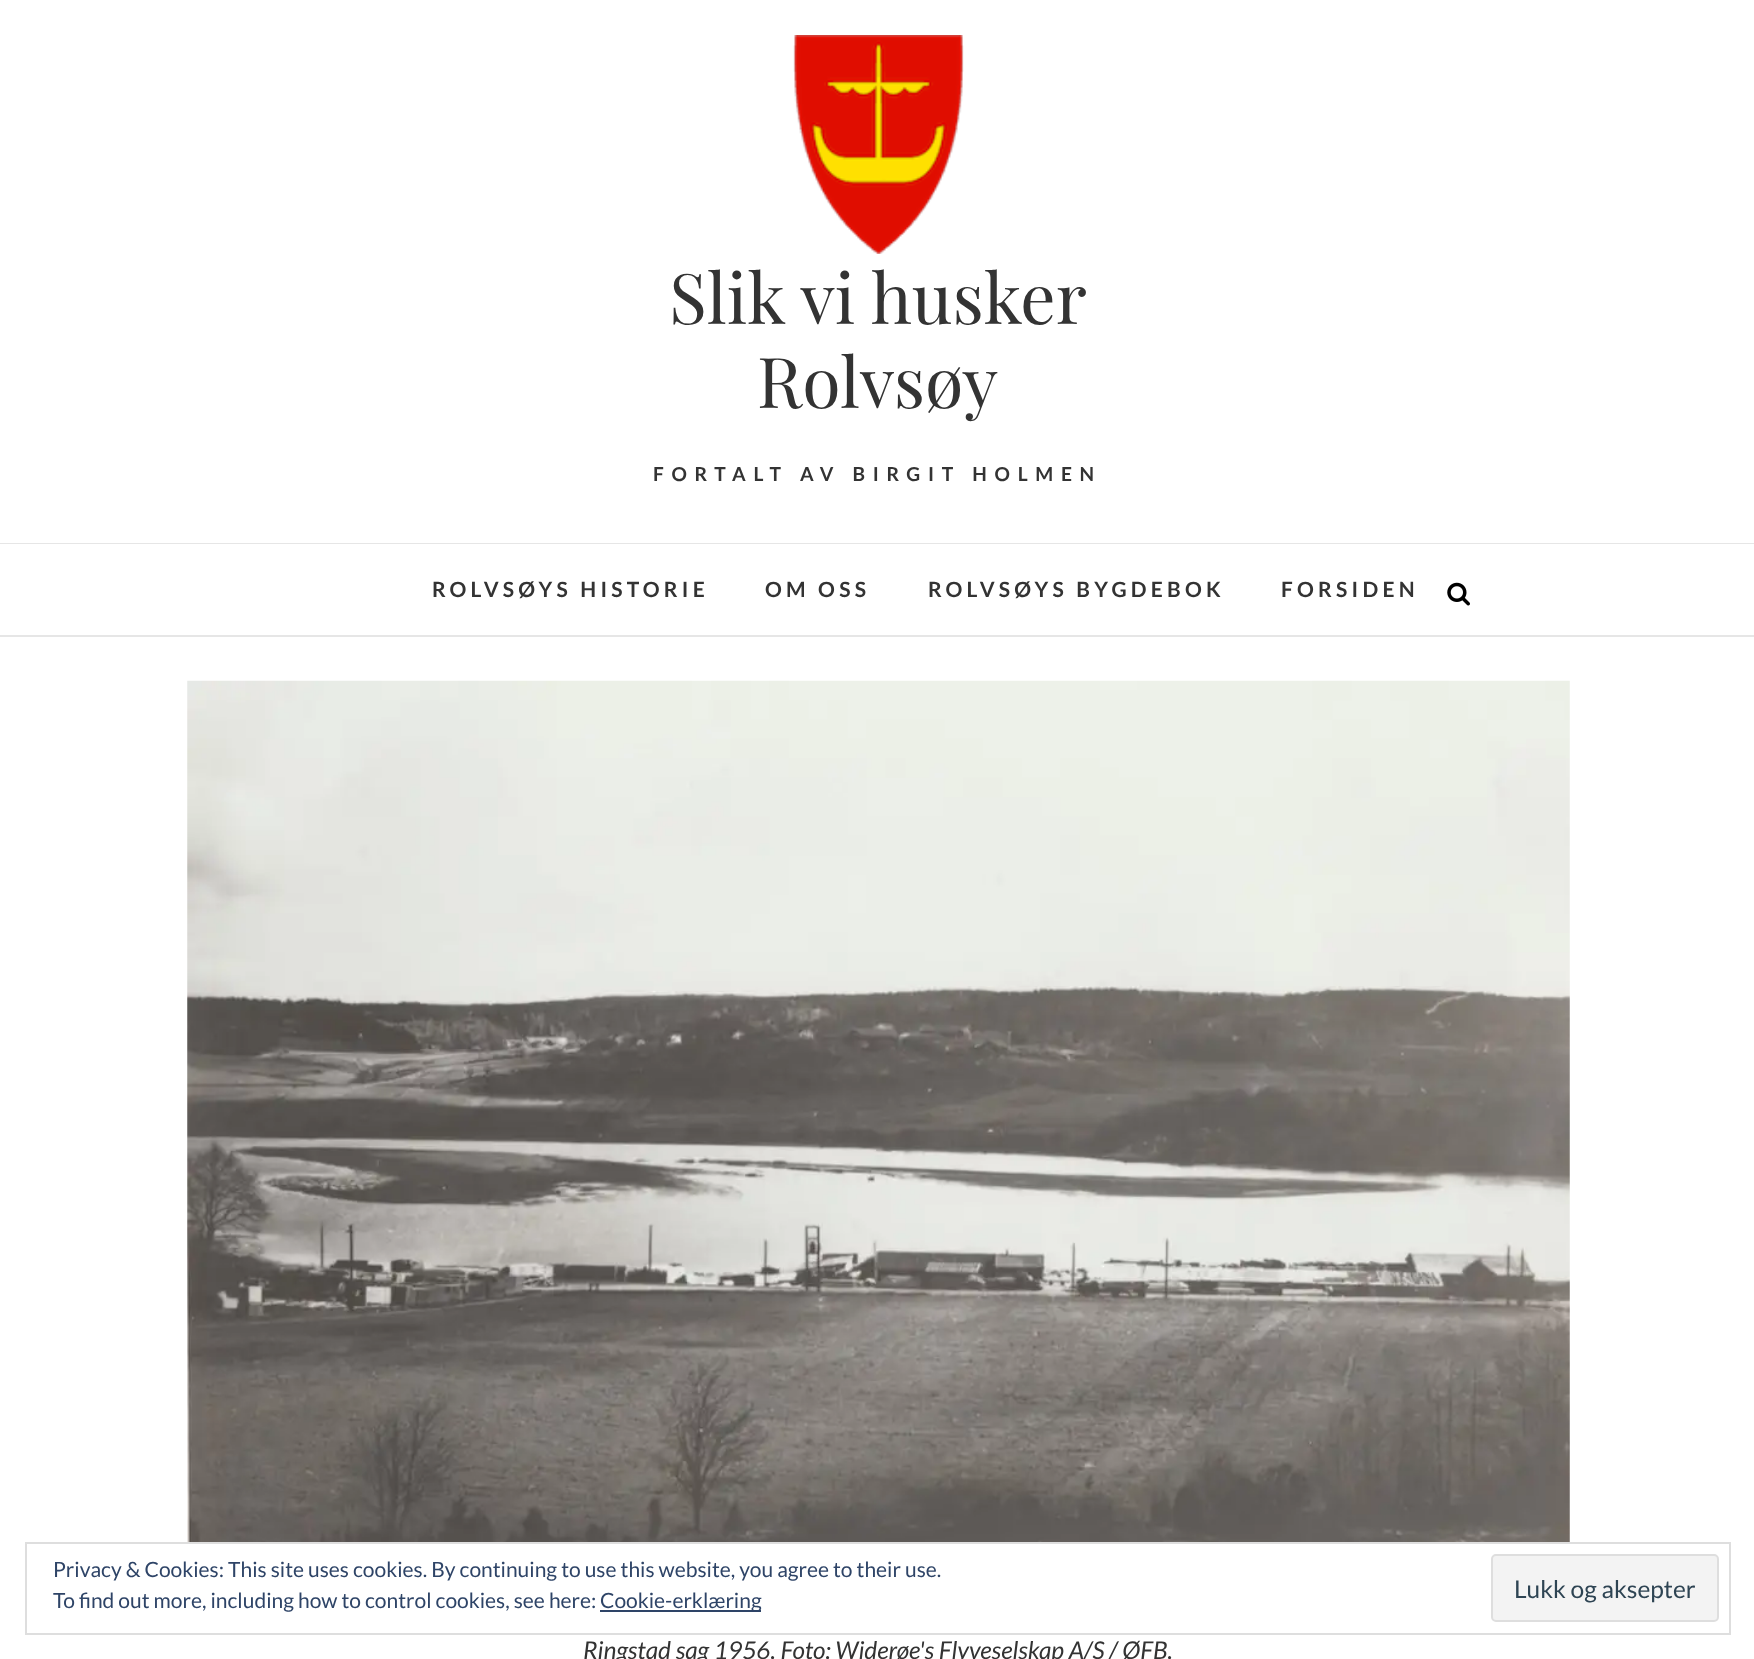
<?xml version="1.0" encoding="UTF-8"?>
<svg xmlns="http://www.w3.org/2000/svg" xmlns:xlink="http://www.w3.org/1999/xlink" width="1754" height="1659">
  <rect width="100%" height="100%" fill="#ffffff" />
  <rect y="543" width="1754" height="1" fill="#e6e6e6" />
  <image x="793" y="35" width="171" height="219" xlink:href="image1.png" />
  <rect y="635" width="1754" height="2" fill="#e6e6e6" />
  <image x="1447" y="582" width="23" height="24" xlink:href="image2.png" />
  <image x="187" y="680" width="1383" height="862" xlink:href="image3.png" />
  <rect x="26" y="1543" width="1704" height="91" fill="none" stroke="#dedede" stroke-width="2" />
  <rect x="600" y="1610" width="161" height="2" fill="#2e4467" />
  <rect x="1492" y="1555" width="226" height="66" rx="4" fill="#f3f3f3" stroke="#dedede" stroke-width="2" />
  <text x="669" y="324" style="font-family: Playfair Display; font-size: 70px; fill: #333333">Slik vi husker</text>
  <text x="757" y="408" style="font-family: Playfair Display; font-size: 70px; fill: #333333">Rolvsøy</text>
  <text x="653" y="481" style="font-family: Lato; font-size: 19.25px; font-weight: bold; letter-spacing: 7.7px; fill: #333333">FORTALT AV BIRGIT HOLMEN</text>
  <text x="432" y="597" style="font-family: Lato; font-size: 21px; font-weight: bold; letter-spacing: 4.25px; fill: #333333">ROLVSØYS HISTORIE</text>
  <text x="765" y="597" style="font-family: Lato; font-size: 21px; font-weight: bold; letter-spacing: 4.25px; fill: #333333">OM OSS</text>
  <text x="928" y="597" style="font-family: Lato; font-size: 21px; font-weight: bold; letter-spacing: 4.25px; fill: #333333">ROLVSØYS BYGDEBOK</text>
  <text x="1281" y="597" style="font-family: Lato; font-size: 21px; font-weight: bold; letter-spacing: 4.25px; fill: #333333">FORSIDEN</text>
  <text x="583" y="1659" style="font-family: Lato; font-size: 24.5px; font-style: italic; fill: #333333">Ringstad sag 1956. Foto: Widerøe's Flyveselskap A/S / ØFB.</text>
  <text x="53" y="1577" style="font-family: Lato; font-size: 21px; fill: #2e4467">Privacy &amp; Cookies: This site uses cookies. By continuing to use this website, you agree to their use.</text>
  <text x="53" y="1608" style="font-family: Lato; font-size: 21px; fill: #2e4467">To find out more, including how to control cookies, see here:</text>
  <text x="600" y="1608" style="font-family: Lato; font-size: 21px; fill: #2e4467">Cookie-erklæring</text>
  <text x="1514" y="1598" style="font-family: Lato; font-size: 24.5px; fill: #2e4453">Lukk og aksepter</text>
</svg>
